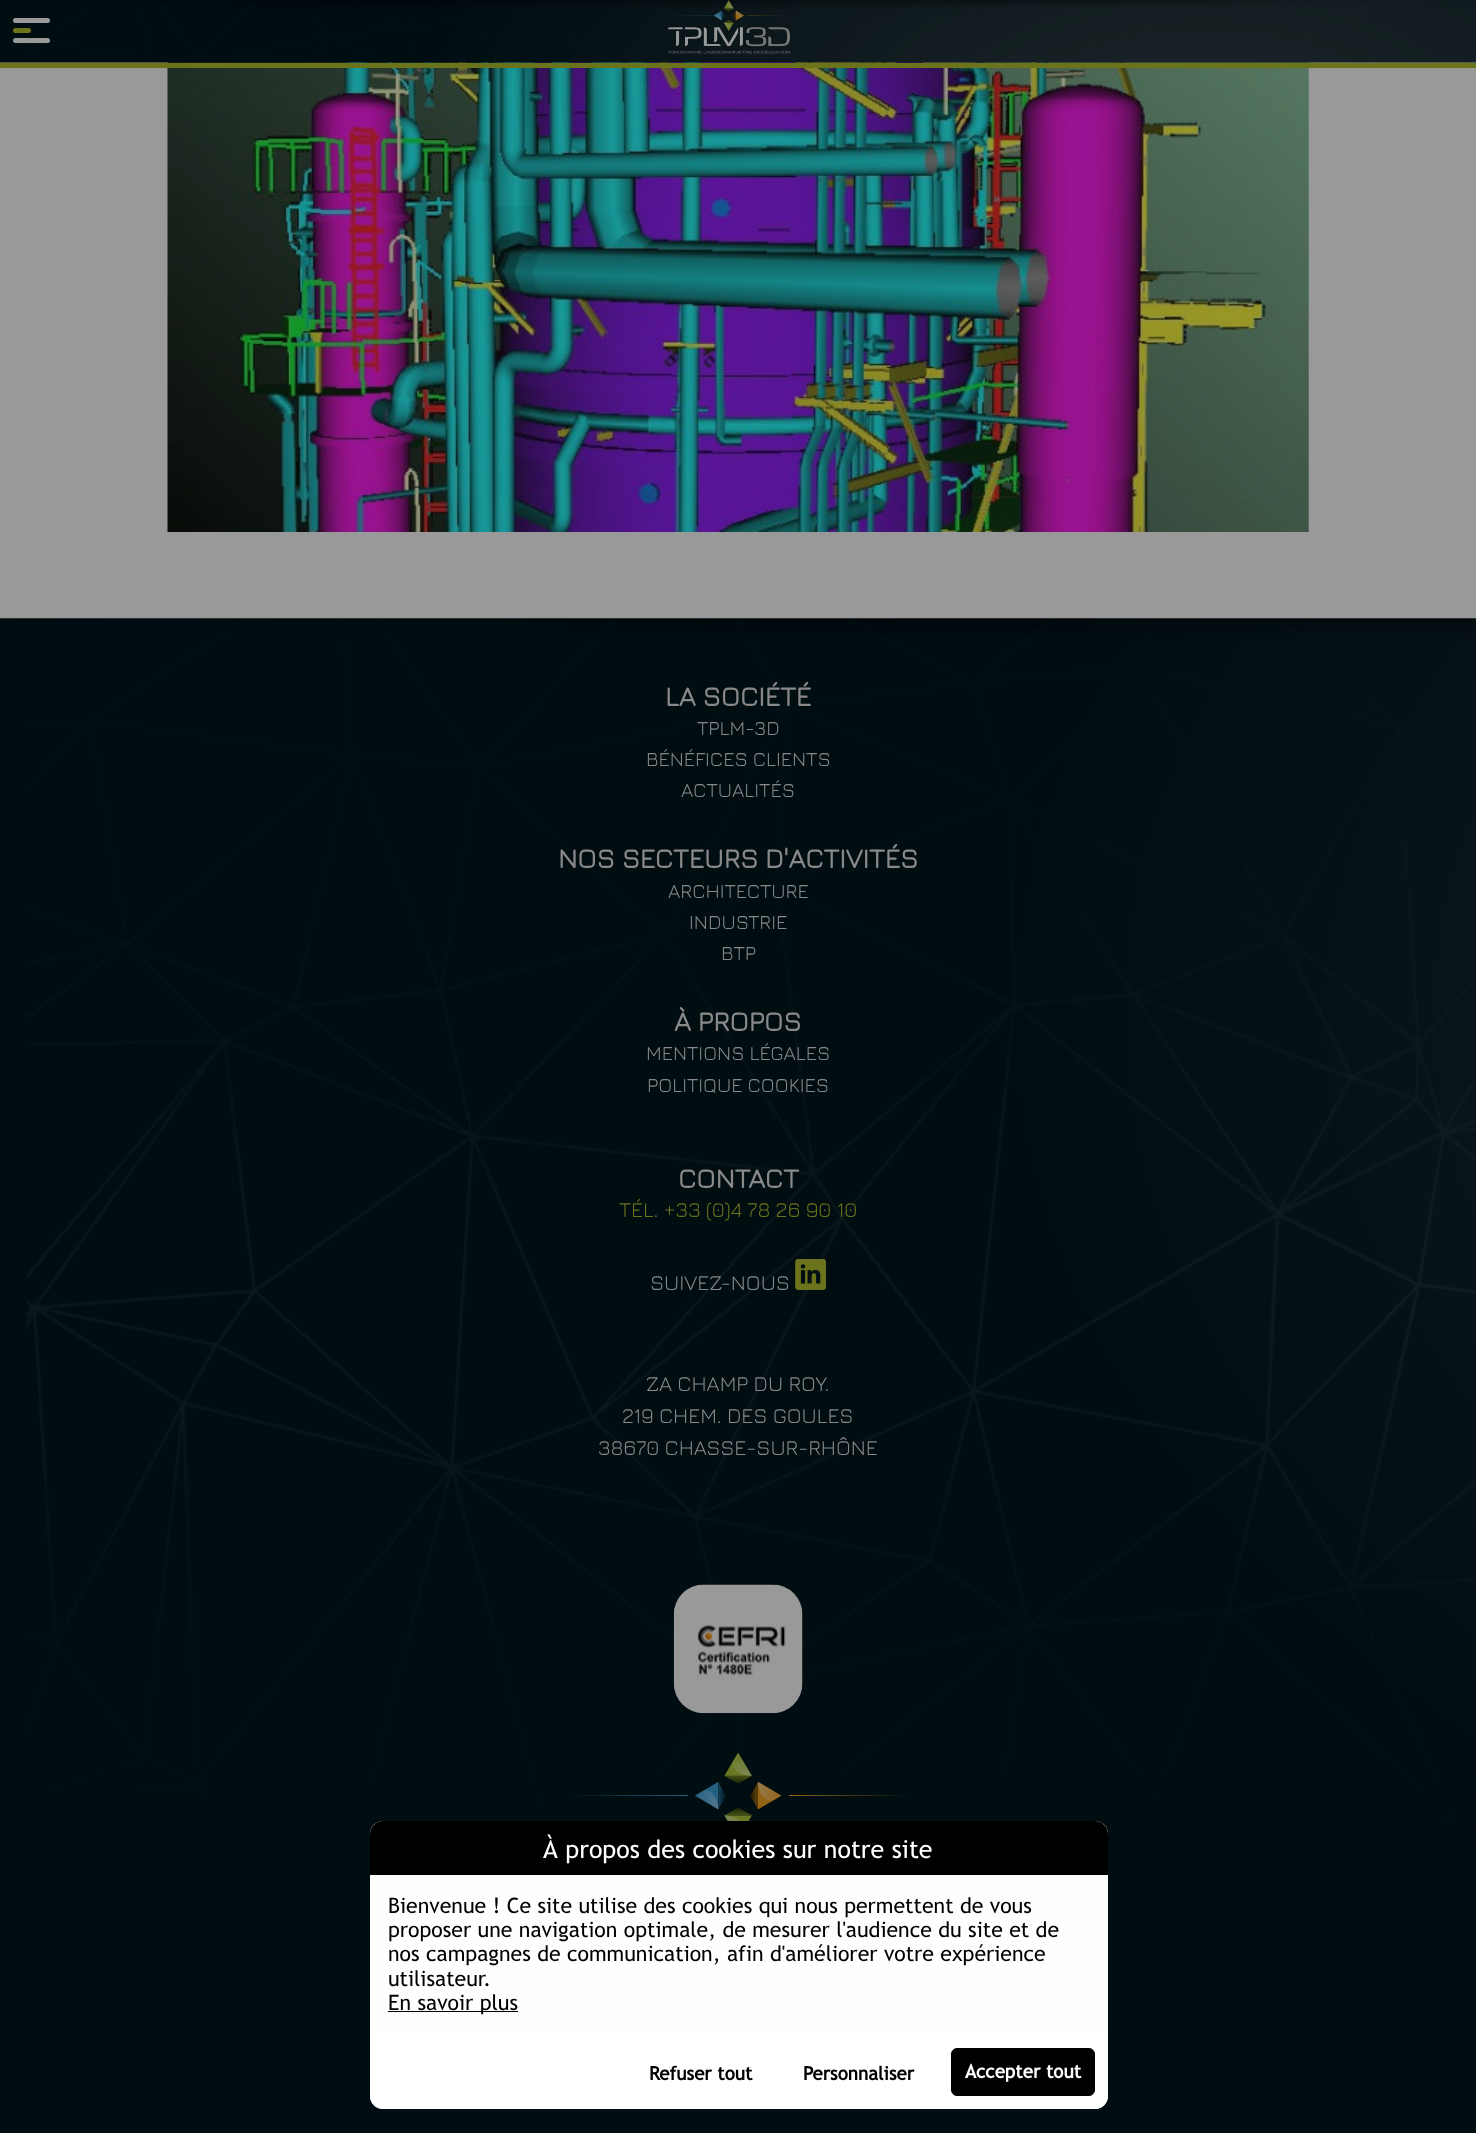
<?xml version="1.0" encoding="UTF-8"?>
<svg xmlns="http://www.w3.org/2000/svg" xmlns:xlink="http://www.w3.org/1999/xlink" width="1476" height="2133">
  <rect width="100%" height="100%" fill="#999999" />
  <image x="167" y="62" width="1142" height="470" xlink:href="image3.png" />
  <image x="0" y="0" width="1476" height="63" xlink:href="image1.png" />
  <rect x="13" y="18" width="37" height="5" rx="2.5" fill="#999999" />
  <rect x="13" y="28" width="18" height="5" rx="2.5" fill="#6b731b" />
  <rect x="13" y="38" width="37" height="5" rx="2.5" fill="#999999" />
  <image x="668" y="0" width="122" height="54" xlink:href="image2.png" />
  <rect y="63" width="1476" height="5" fill="#6b731b" />
  <image x="0" y="618" width="1476" height="1515" xlink:href="image4.png" />
  <image x="795" y="1259" width="31" height="31" xlink:href="image5.png" />
  <image x="673" y="1584" width="130" height="130" xlink:href="image6.png" />
  <image x="569" y="1753" width="338" height="68" xlink:href="image7.png" />
  <rect x="370" y="1821" width="738" height="288" rx="13" fill="#fefefe" />
  <path d="M 383 1821 h 712 c 7 0 13 6 13 13 v 41 h -738 v -41 c 0 -7 6 -13 13 -13 z" fill="#000000" />
  <rect x="388" y="2011" width="130" height="1" fill="#000000" />
  <path d="M 370 2035 h 738 v 61 c 0 7 -6 13 -13 13 h -712 c -7 0 -13 -6 -13 -13 z" fill="#ffffff" />
  <rect x="951.5" y="2048.5" width="143" height="47" rx="5.5" fill="#000000" stroke="#000000" />
  <text x="665" y="706" style="font-family: Jura; font-size: 27.5px; font-weight: bold; fill: #898989">LA SOCIÉTÉ</text>
  <text x="697" y="735" style="font-family: Jura; font-size: 20px; font-weight: 300; fill: #898989">TPLM-3D</text>
  <text x="646" y="766" style="font-family: Jura; font-size: 20px; font-weight: 300; fill: #898989">BÉNÉFICES CLIENTS</text>
  <text x="681" y="797" style="font-family: Jura; font-size: 20px; font-weight: 300; fill: #898989">ACTUALITÉS</text>
  <text x="558" y="868" style="font-family: Jura; font-size: 27.5px; font-weight: bold; fill: #898989">NOS SECTEURS D'ACTIVITÉS</text>
  <text x="668" y="898" style="font-family: Jura; font-size: 20px; font-weight: 300; fill: #898989">ARCHITECTURE</text>
  <text x="689" y="929" style="font-family: Jura; font-size: 20px; font-weight: 300; fill: #898989">INDUSTRIE</text>
  <text x="721" y="960" style="font-family: Jura; font-size: 20px; font-weight: 300; fill: #898989">BTP</text>
  <text x="674" y="1031" style="font-family: Jura; font-size: 27.5px; font-weight: bold; fill: #898989">À PROPOS</text>
  <text x="646" y="1060" style="font-family: Jura; font-size: 20px; font-weight: 300; fill: #898989">MENTIONS LÉGALES</text>
  <text x="647" y="1092" style="font-family: Jura; font-size: 20px; font-weight: 300; fill: #898989">POLITIQUE COOKIES</text>
  <text x="678" y="1188" style="font-family: Jura; font-size: 27.5px; font-weight: bold; fill: #898989">CONTACT</text>
  <text x="619" y="1217" style="font-family: Jura; font-size: 21.25px; font-weight: 300; fill: #6b731b">TÉL. +33 (0)4 78 26 90 10</text>
  <text x="650" y="1290" style="font-family: Jura; font-size: 21.25px; font-weight: 300; fill: #898989">SUIVEZ-NOUS</text>
  <text x="646" y="1391" style="font-family: Jura; font-size: 21.25px; font-weight: 300; fill: #898989">ZA CHAMP DU ROY.</text>
  <text x="622" y="1423" style="font-family: Jura; font-size: 21.25px; font-weight: 300; fill: #898989">219 CHEM. DES GOULES</text>
  <text x="598" y="1455" style="font-family: Jura; font-size: 21.25px; font-weight: 300; fill: #898989">38670 CHASSE-SUR-RHÔNE</text>
  <text x="543" y="1858" style="font-family: Trebuchet MS; font-size: 25px; fill: #ffffff">À propos des cookies sur notre site</text>
  <text x="388" y="1913" style="font-family: Trebuchet MS; font-size: 21.25px; fill: #000000">Bienvenue ! Ce site utilise des cookies qui nous permettent de vous</text>
  <text x="388" y="1937" style="font-family: Trebuchet MS; font-size: 21.25px; fill: #000000">proposer une navigation optimale, de mesurer l'audience du site et de</text>
  <text x="388" y="1961" style="font-family: Trebuchet MS; font-size: 21.25px; fill: #000000">nos campagnes de communication, afin d'améliorer votre expérience</text>
  <text x="388" y="1986" style="font-family: Trebuchet MS; font-size: 21.25px; fill: #000000">utilisateur.</text>
  <text x="388" y="2010" style="font-family: Trebuchet MS; font-size: 21.25px; fill: #000000">En savoir plus</text>
  <text x="649" y="2080" style="font-family: Trebuchet MS; font-size: 18.75px; font-weight: bold; fill: #000000">Refuser tout</text>
  <text x="803" y="2080" style="font-family: Trebuchet MS; font-size: 18.75px; font-weight: bold; fill: #000000">Personnaliser</text>
  <text x="965" y="2078" style="font-family: Trebuchet MS; font-size: 18.75px; font-weight: bold; fill: #ffffff">Accepter tout</text>
</svg>
